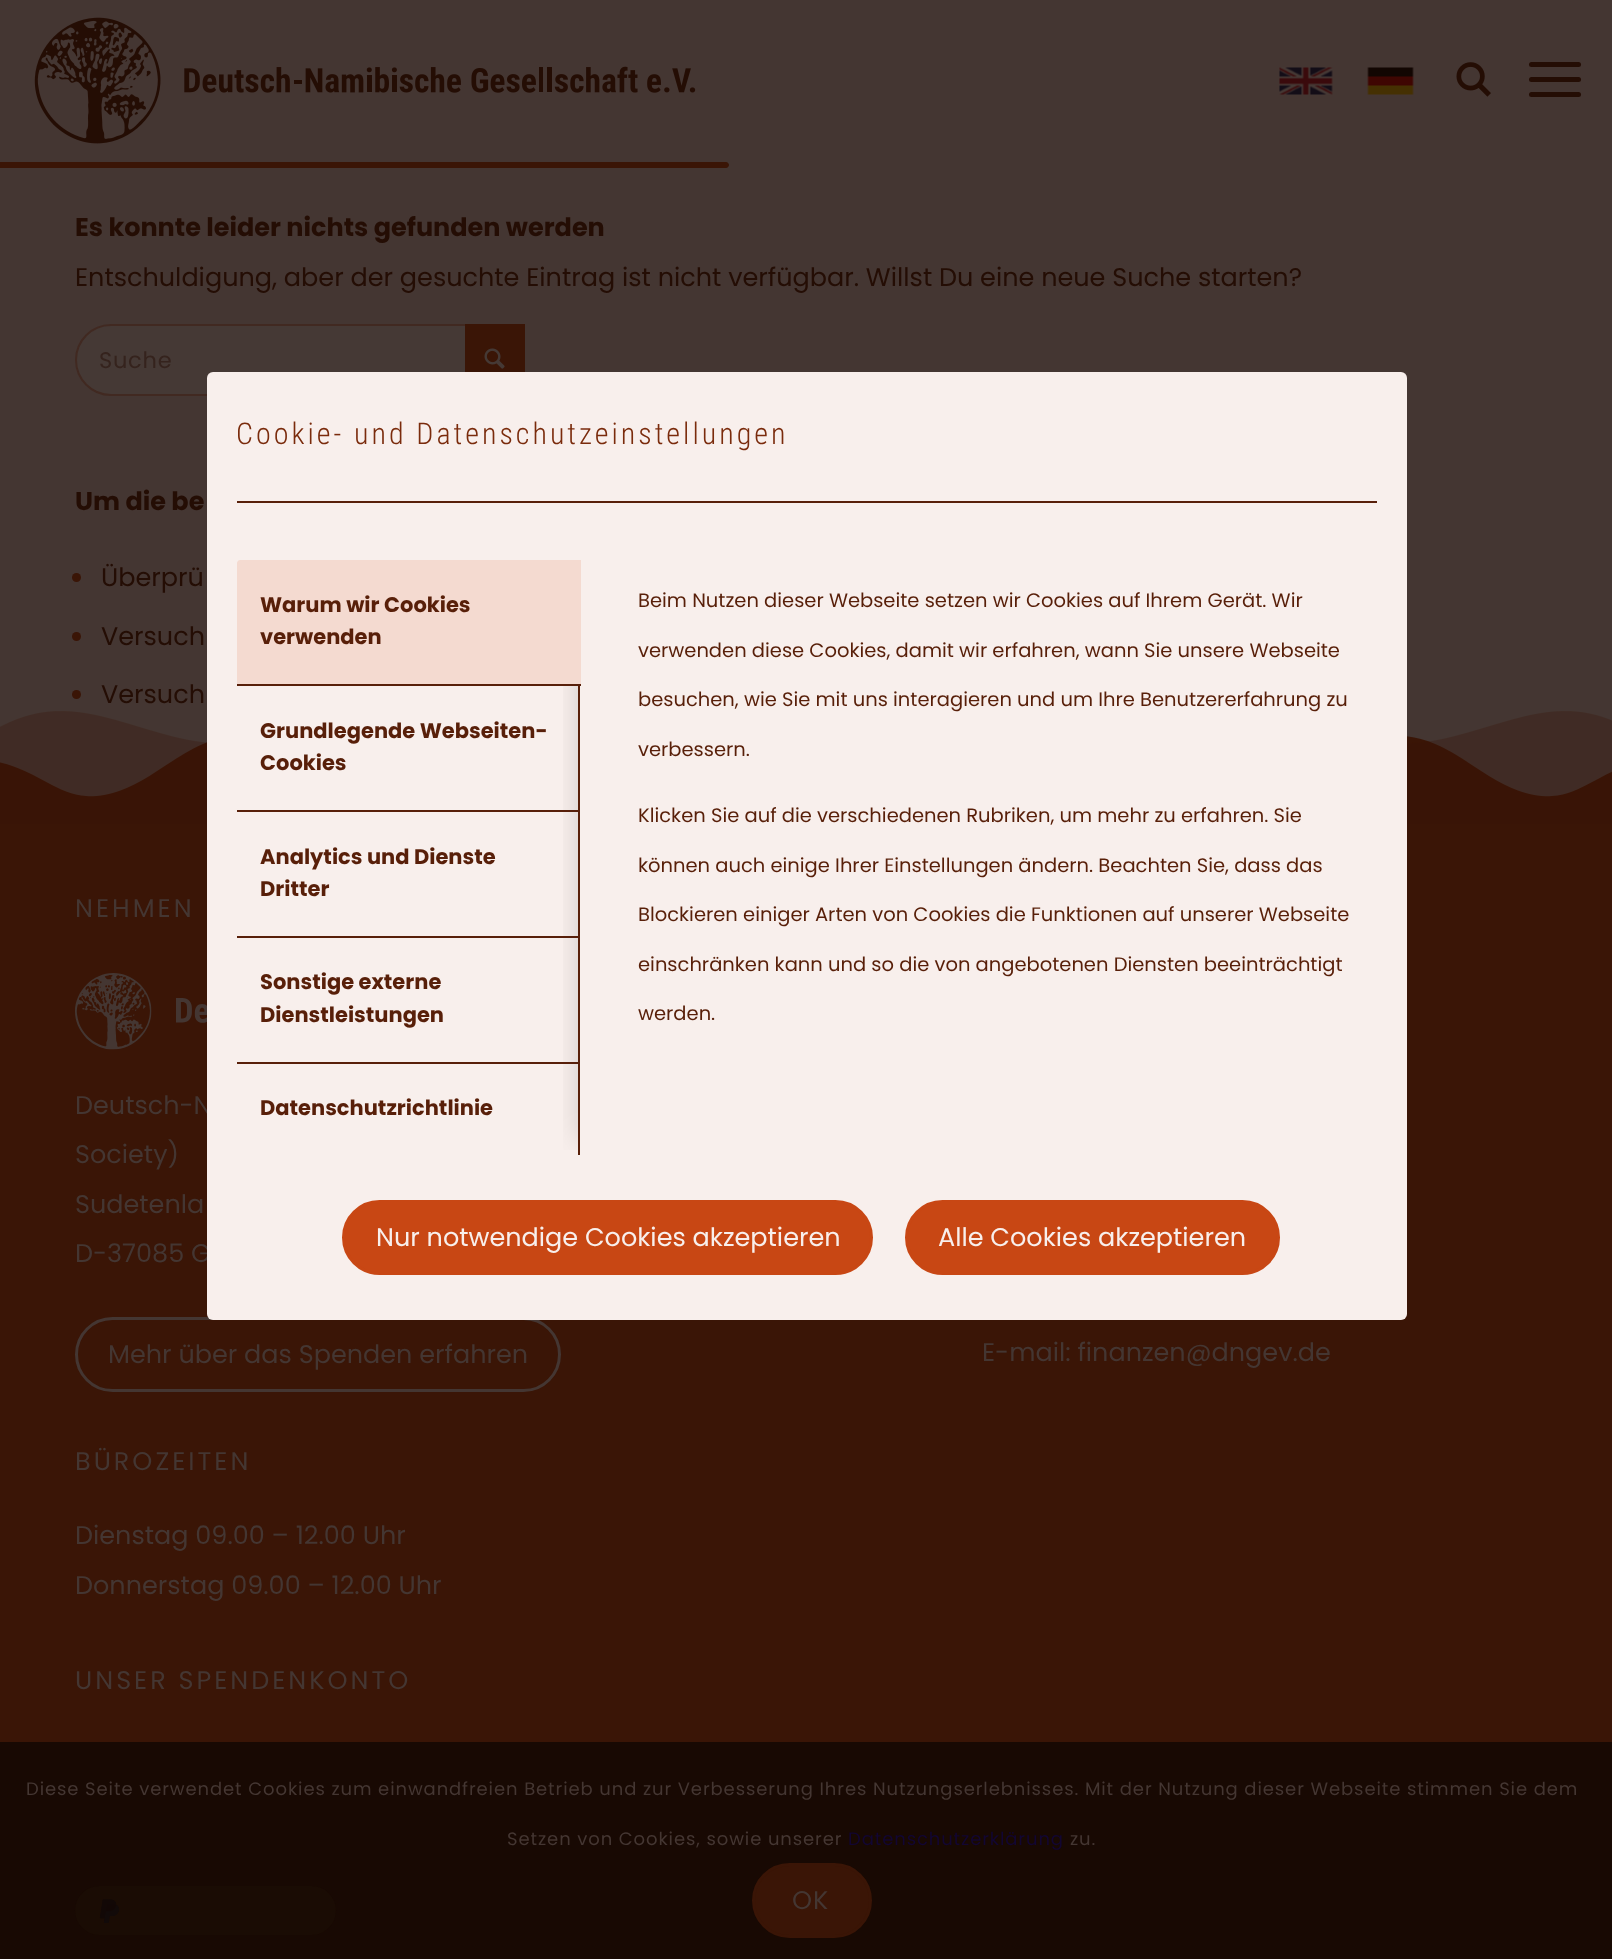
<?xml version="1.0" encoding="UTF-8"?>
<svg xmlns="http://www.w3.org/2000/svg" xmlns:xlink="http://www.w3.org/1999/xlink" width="1612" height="1959">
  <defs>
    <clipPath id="clip1"><rect x="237" y="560" width="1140" height="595" /></clipPath>
    <clipPath id="clip2"><rect x="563" y="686" width="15" height="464" /></clipPath>
  </defs>
  <rect width="100%" height="100%" fill="#443632" />
  <image x="34" y="17" width="662" height="127" xlink:href="image1.png" />
  <image x="1279" y="67" width="54" height="28" xlink:href="image2.png" />
  <image x="1367" y="67" width="47" height="28" xlink:href="image3.png" />
  <image x="1456" y="62" width="35" height="35" xlink:href="image4.png" />
  <rect x="1529" y="77" width="52" height="5" rx="2.5" fill="#240d04" />
  <rect x="1529" y="62" width="52" height="5" rx="2.5" fill="#240d04" />
  <rect x="1529" y="92" width="52" height="5" rx="2.5" fill="#240d04" />
  <path d="M 0 162 h 726 c 1.5 0 3 1.5 3 3 c 0 1.5 -1.5 3 -3 3 h -726 z" fill="#3a1506" />
  <rect x="76" y="325" width="448" height="70" rx="35" fill="#453935" stroke="#412921" stroke-width="2" />
  <rect x="465" y="324" width="60" height="48" fill="#3a1506" />
  <image x="484" y="348" width="21" height="21" xlink:href="image5.png" />
  <circle cx="76.5" cy="577.5" r="4.5" fill="#3a1506" />
  <circle cx="76.5" cy="636.5" r="4.5" fill="#3a1506" />
  <circle cx="76.5" cy="694.5" r="4.5" fill="#3a1506" />
  <rect y="830" width="1612" height="912" fill="#3a1506" />
  <rect y="1742" width="1612" height="217" fill="#180903" />
  <image x="0" y="736" width="1612" height="94" xlink:href="image7.png" />
  <image x="0" y="711" width="1612" height="113" xlink:href="image6.png" />
  <image x="75" y="973" width="132" height="77" xlink:href="image8.png" />
  <rect x="76.5" y="1318.5" width="483" height="72" rx="36" fill="none" stroke="#443632" stroke-width="3" />
  <rect x="75" y="1886" width="261" height="49" rx="24.5" fill="#1a0c04" />
  <image x="99" y="1899" width="20" height="24" xlink:href="image9.png" />
  <rect x="753.5" y="1864.5" width="117" height="72" rx="36" fill="#3a1506" stroke="#3a1506" stroke-width="3" />
  <text x="75" y="236" style="font-family: Poppins; font-size: 25.5px; font-weight: bold; fill: #240d04">Es konnte leider nichts gefunden werden</text>
  <text x="75" y="286" style="font-family: Poppins; font-size: 25.5px; fill: #240d04">Entschuldigung, aber der gesuchte Eintrag ist nicht verfügbar. Willst Du eine neue Suche starten?</text>
  <text x="99" y="368" style="font-family: Poppins; font-size: 22.5px; letter-spacing: 0.75px; fill: #35231d">Suche</text>
  <text x="75" y="510" style="font-family: Poppins; font-size: 25.5px; font-weight: bold; fill: #240d04">Um die be</text>
  <text x="101" y="586" style="font-family: Poppins; font-size: 25.5px; fill: #240d04">Überprü</text>
  <text x="101" y="645" style="font-family: Poppins; font-size: 25.5px; fill: #240d04">Versuch</text>
  <text x="101" y="703" style="font-family: Poppins; font-size: 25.5px; fill: #240d04">Versuch</text>
  <text x="75" y="917" style="font-family: Poppins; font-size: 25.5px; letter-spacing: 3px; fill: #443632">NEHMEN</text>
  <text x="75" y="1114" word-spacing="2" style="font-family: Poppins; font-size: 25.5px; fill: #443632">Deutsch-N</text>
  <text x="75" y="1163" style="font-family: Poppins; font-size: 25.5px; fill: #443632">Society)</text>
  <text x="75" y="1213" style="font-family: Poppins; font-size: 25.5px; fill: #443632">Sudetenla</text>
  <text x="75" y="1262" style="font-family: Poppins; font-size: 25.5px; fill: #443632">D-37085 G</text>
  <text x="108" y="1363" style="font-family: Poppins; font-size: 25.5px; fill: #443632">Mehr über das Spenden erfahren</text>
  <text x="982" y="1361" style="font-family: Poppins; font-size: 25.5px; fill: #443632">E-mail: finanzen@dngev.de</text>
  <text x="75" y="1470" style="font-family: Poppins; font-size: 25.5px; letter-spacing: 3px; fill: #443632">BÜROZEITEN</text>
  <text x="75" y="1544" style="font-family: Poppins; font-size: 25.5px; fill: #443632">Dienstag 09.00 – 12.00 Uhr</text>
  <text x="75" y="1594" style="font-family: Poppins; font-size: 25.5px; fill: #443632">Donnerstag 09.00 – 12.00 Uhr</text>
  <text x="75" y="1689" style="font-family: Poppins; font-size: 25.5px; letter-spacing: 3px; fill: #443632">UNSER SPENDENKONTO</text>
  <rect x="207" y="372" width="1200" height="948" rx="6" fill="#f8efec" />
  <text x="236" y="444" style="font-family: Roboto Condensed; font-size: 30px; font-weight: 300; letter-spacing: 3px; fill: #7a2b0c">Cookie- und Datenschutzeinstellungen</text>
  <rect x="237" y="501" width="1140" height="2" fill="#581f09" />
  <text x="260" y="770" style="font-family: Poppins; font-size: 21px; font-weight: bold; fill: #581f09">Cookies</text>
  <text x="260" y="864" style="font-family: Poppins; font-size: 21px; font-weight: bold; fill: #581f09">Analytics und Dienste</text>
  <text x="260" y="896" style="font-family: Poppins; font-size: 21px; font-weight: bold; fill: #581f09">Dritter</text>
  <text x="260" y="989" style="font-family: Poppins; font-size: 21px; font-weight: bold; fill: #581f09">Sonstige externe</text>
  <text x="260" y="1022" style="font-family: Poppins; font-size: 21px; font-weight: bold; fill: #581f09">Dienstleistungen</text>
  <text x="260" y="1115" style="font-family: Poppins; font-size: 21px; font-weight: bold; fill: #581f09">Datenschutzrichtlinie</text>
  <g clip-path="url(#clip1)">
    <g clip-path="url(#clip2)">
      <rect x="582" y="575" width="768" height="565" fill="#000000" fill-opacity="0.2" filter="blur(15px)" />
    </g>
  </g>
  <rect x="578" y="684" width="2" height="128" fill="#581f09" />
  <path d="M 240 560 h 341 v 126 h -344 v -123 c 0 -1.5 1.5 -3 3 -3 z" fill="#f4dad0" />
  <text x="260" y="644" style="font-family: Poppins; font-size: 21px; font-weight: bold; fill: #581f09">verwenden</text>
  <text x="260" y="612" style="font-family: Poppins; font-size: 21px; font-weight: bold; fill: #581f09">Warum wir Cookies</text>
  <rect x="237" y="684" width="344" height="2" fill="#581f09" />
  <rect x="237" y="810" width="342" height="2" fill="#581f09" />
  <rect x="578" y="810" width="2" height="128" fill="#581f09" />
  <rect x="237" y="936" width="342" height="2" fill="#581f09" />
  <rect x="578" y="936" width="2" height="128" fill="#581f09" />
  <rect x="237" y="1062" width="342" height="2" fill="#581f09" />
  <rect x="578" y="1062" width="2" height="93" fill="#581f09" />
  <text x="260" y="738" style="font-family: Poppins; font-size: 21px; font-weight: bold; fill: #581f09">Grundlegende Webseiten-</text>
  <text x="638" y="607" style="font-family: Poppins; font-size: 19.5px; fill: #581f09">Beim Nutzen dieser Webseite setzen wir Cookies auf Ihrem Gerät. Wir</text>
  <text x="638" y="657" style="font-family: Poppins; font-size: 19.5px; fill: #581f09">verwenden diese Cookies, damit wir erfahren, wann Sie unsere Webseite</text>
  <text x="638" y="706" style="font-family: Poppins; font-size: 19.5px; fill: #581f09">besuchen, wie Sie mit uns interagieren und um Ihre Benutzererfahrung zu</text>
  <text x="638" y="756" style="font-family: Poppins; font-size: 19.5px; fill: #581f09">verbessern.</text>
  <text x="638" y="822" style="font-family: Poppins; font-size: 19.5px; fill: #581f09">Klicken Sie auf die verschiedenen Rubriken, um mehr zu erfahren. Sie</text>
  <text x="638" y="872" style="font-family: Poppins; font-size: 19.5px; fill: #581f09">können auch einige Ihrer Einstellungen ändern. Beachten Sie, dass das</text>
  <text x="638" y="921" style="font-family: Poppins; font-size: 19.5px; fill: #581f09">Blockieren einiger Arten von Cookies die Funktionen auf unserer Webseite</text>
  <text x="638" y="971" style="font-family: Poppins; font-size: 19.5px; fill: #581f09">einschränken kann und so die von angebotenen Diensten beeinträchtigt</text>
  <text x="638" y="1020" style="font-family: Poppins; font-size: 19.5px; fill: #581f09">werden.</text>
  <rect x="343.5" y="1201.5" width="528" height="72" rx="36" fill="#c84714" stroke="#c84714" stroke-width="3" />
  <text x="376" y="1246" style="font-family: Poppins; font-size: 25.5px; fill: #f8efec">Nur notwendige Cookies akzeptieren</text>
  <rect x="906.5" y="1201.5" width="372" height="72" rx="36" fill="#c84714" stroke="#c84714" stroke-width="3" />
  <text x="938" y="1246" style="font-family: Poppins; font-size: 25.5px; fill: #f8efec">Alle Cookies akzeptieren</text>
  <text x="26" y="1795" style="font-family: Poppins; font-size: 18px; letter-spacing: 0.9px; fill: #443632">Diese Seite verwendet Cookies zum einwandfreien Betrieb und zur Verbesserung Ihres Nutzungserlebnisses. Mit der Nutzung dieser Webseite stimmen Sie dem</text>
  <text x="507" y="1845" style="font-family: Poppins; font-size: 18px; letter-spacing: 0.9px; fill: #443632">Setzen von Cookies, sowie unserer</text>
  <text x="848" y="1845" style="font-family: Poppins; font-size: 18px; letter-spacing: 0.9px; fill: #120632">Datenschutzerklärung</text>
  <text x="1070" y="1845" style="font-family: Poppins; font-size: 18px; letter-spacing: 0.9px; fill: #443632">zu.</text>
  <text x="792" y="1909" style="font-family: Poppins; font-size: 25.5px; letter-spacing: 1px; fill: #443632">OK</text>
</svg>
